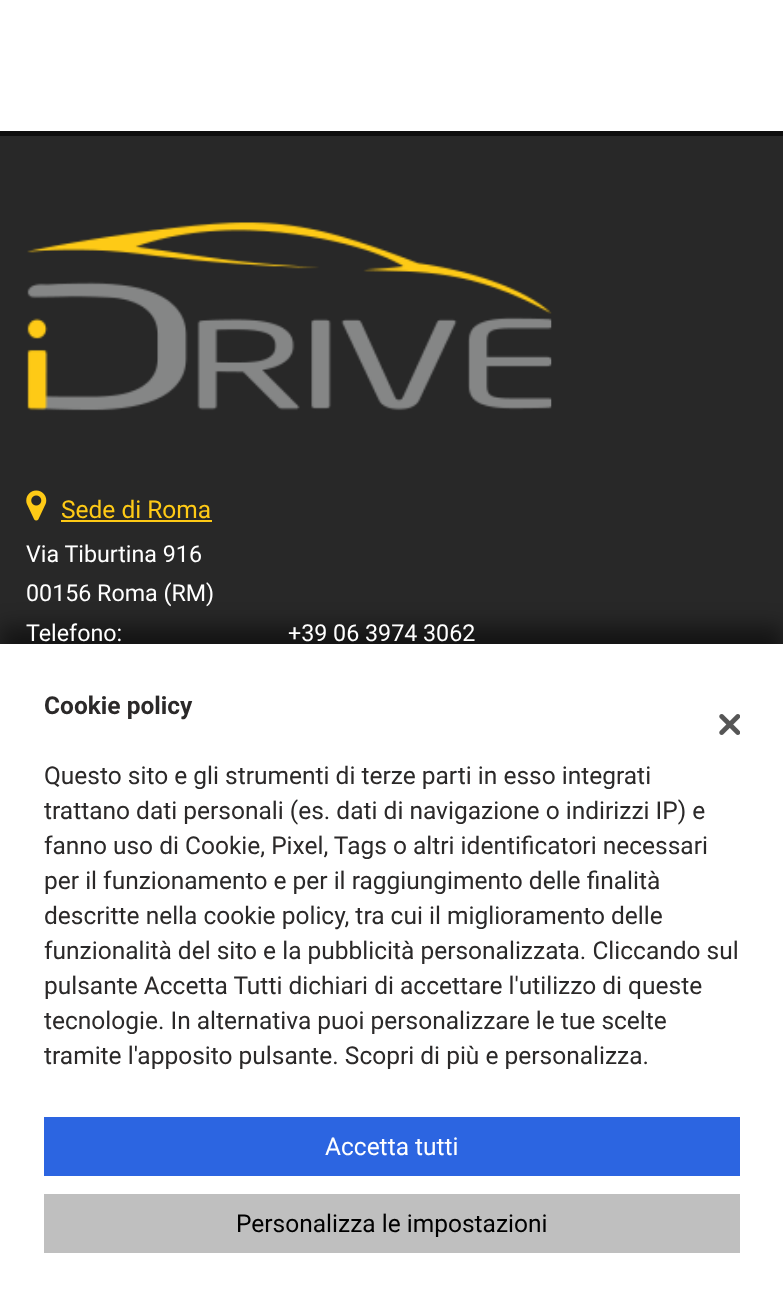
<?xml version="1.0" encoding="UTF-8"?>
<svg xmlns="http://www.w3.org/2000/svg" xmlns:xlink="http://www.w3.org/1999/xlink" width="783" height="1314">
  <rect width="100%" height="100%" fill="#ffffff" />
  <rect y="136" width="783" height="508" fill="#282828" />
  <rect y="131" width="783" height="5" fill="#0e0e0e" />
  <image x="27" y="222" width="525" height="189" xlink:href="image1.png" />
  <image x="26" y="490" width="21" height="31" xlink:href="image2.png" />
  <rect x="61" y="520" width="151" height="2" fill="#feca16" />
  <rect y="627" width="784" height="670" fill="#000000" fill-opacity="0.5" filter="blur(10.5px)" />
  <rect y="644" width="783" height="670" fill="#ffffff" />
  <image x="719" y="714" width="21" height="21" xlink:href="image3.png" />
  <rect x="44" y="1117" width="696" height="59" fill="#2c65e1" />
  <rect x="44" y="1194" width="696" height="59" fill="#bfbfbf" />
  <text x="61" y="518" style="font-family: Roboto; font-size: 24.5px; fill: #feca16">Sede di Roma</text>
  <text x="26" y="562" style="font-family: Roboto; font-size: 23.25px; fill: #ffffff">Via Tiburtina 916</text>
  <text x="26" y="601" style="font-family: Roboto; font-size: 23.25px; fill: #ffffff">00156 Roma (RM)</text>
  <text x="26" y="641" style="font-family: Roboto; font-size: 23.25px; fill: #ffffff">Telefono:</text>
  <text x="288" y="641" style="font-family: Roboto; font-size: 23.25px; fill: #ffffff">+39 06 3974 3062</text>
  <text x="44" y="714" style="font-family: Roboto; font-size: 24.5px; font-weight: bold; fill: #2b2929">Cookie policy</text>
  <text x="44" y="784" style="font-family: Roboto; font-size: 24.5px; fill: #2b2929">Questo sito e gli strumenti di terze parti in esso integrati</text>
  <text x="44" y="819" style="font-family: Roboto; font-size: 24.5px; fill: #2b2929">trattano dati personali (es. dati di navigazione o indirizzi IP) e</text>
  <text x="44" y="854" style="font-family: Roboto; font-size: 24.5px; fill: #2b2929">fanno uso di Cookie, Pixel, Tags o altri identificatori necessari</text>
  <text x="44" y="889" style="font-family: Roboto; font-size: 24.5px; fill: #2b2929">per il funzionamento e per il raggiungimento delle finalità</text>
  <text x="44" y="924" style="font-family: Roboto; font-size: 24.5px; fill: #2b2929">descritte nella cookie policy, tra cui il miglioramento delle</text>
  <text x="44" y="959" style="font-family: Roboto; font-size: 24.5px; fill: #2b2929">funzionalità del sito e la pubblicità personalizzata. Cliccando sul</text>
  <text x="44" y="994" style="font-family: Roboto; font-size: 24.5px; fill: #2b2929">pulsante Accetta Tutti dichiari di accettare l'utilizzo di queste</text>
  <text x="44" y="1029" style="font-family: Roboto; font-size: 24.5px; fill: #2b2929">tecnologie. In alternativa puoi personalizzare le tue scelte</text>
  <text x="44" y="1064" style="font-family: Roboto; font-size: 24.5px; fill: #2b2929">tramite l'apposito pulsante. Scopri di più e personalizza.</text>
  <text x="325" y="1155" style="font-family: Roboto; font-size: 24.5px; fill: #ffffff">Accetta tutti</text>
  <text x="236" y="1232" style="font-family: Roboto; font-size: 24.5px; fill: #000000">Personalizza le impostazioni</text>
</svg>
